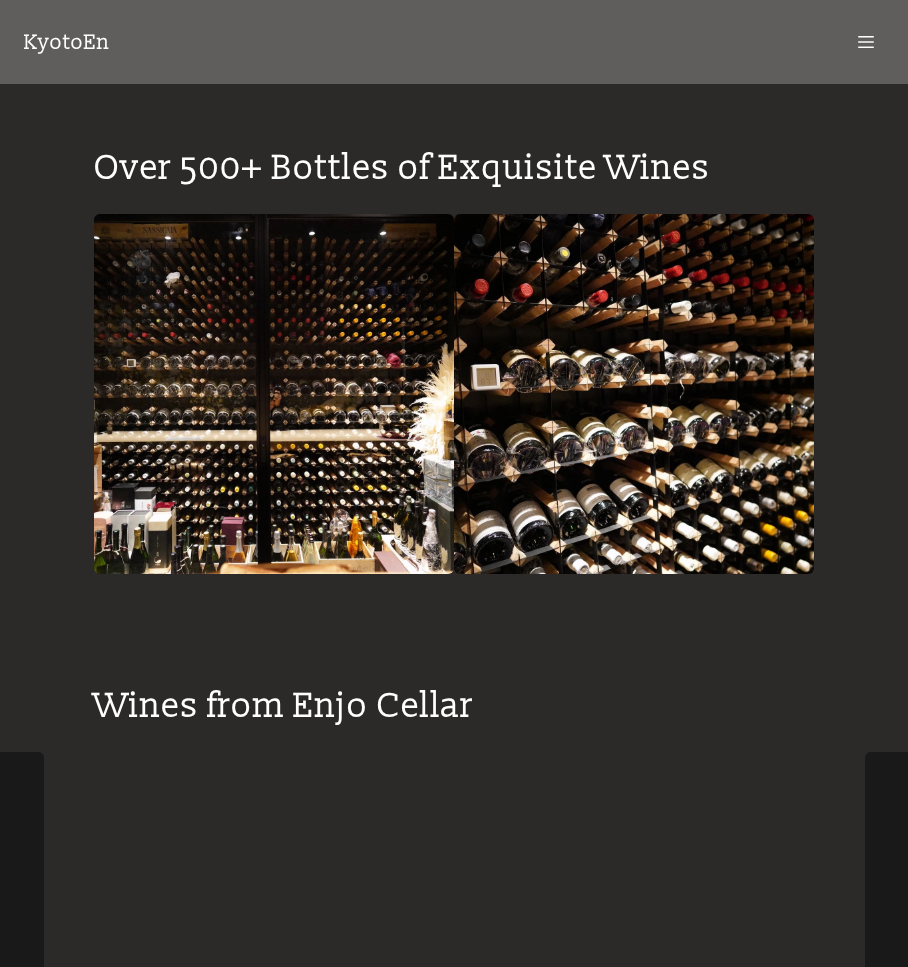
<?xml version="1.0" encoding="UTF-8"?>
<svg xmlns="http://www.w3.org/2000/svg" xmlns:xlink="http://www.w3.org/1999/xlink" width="908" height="967">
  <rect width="100%" height="100%" fill="#2c2929" />
  <rect width="908" height="84" fill="#605e5d" />
  <image x="858" y="36" width="16" height="12" xlink:href="image1.png" />
  <image x="94" y="214" width="360" height="360" xlink:href="image2.png" />
  <image x="454" y="214" width="360" height="360" xlink:href="image3.png" />
  <path d="M 0 752 h 38 c 3.5 0 6 2.5 6 6 v 209 h -44 z" fill="#1a1919" />
  <path d="M 871 752 h 37 v 215 h -43 v -209 c 0 -3.5 2.5 -6 6 -6 z" fill="#1a1919" />
  <text x="24" y="49" style="font-family: 'Slabo 13px'; font-size: 21px; fill: #ffffff">KyotoEn</text>
  <text x="94" y="179" style="font-family: 'Slabo 13px'; font-size: 35px; fill: #ffffff">Over 500+ Bottles of Exquisite Wines</text>
  <text x="94" y="717" style="font-family: 'Slabo 13px'; font-size: 35px; fill: #ffffff">Wines from Enjo Cellar</text>
</svg>
